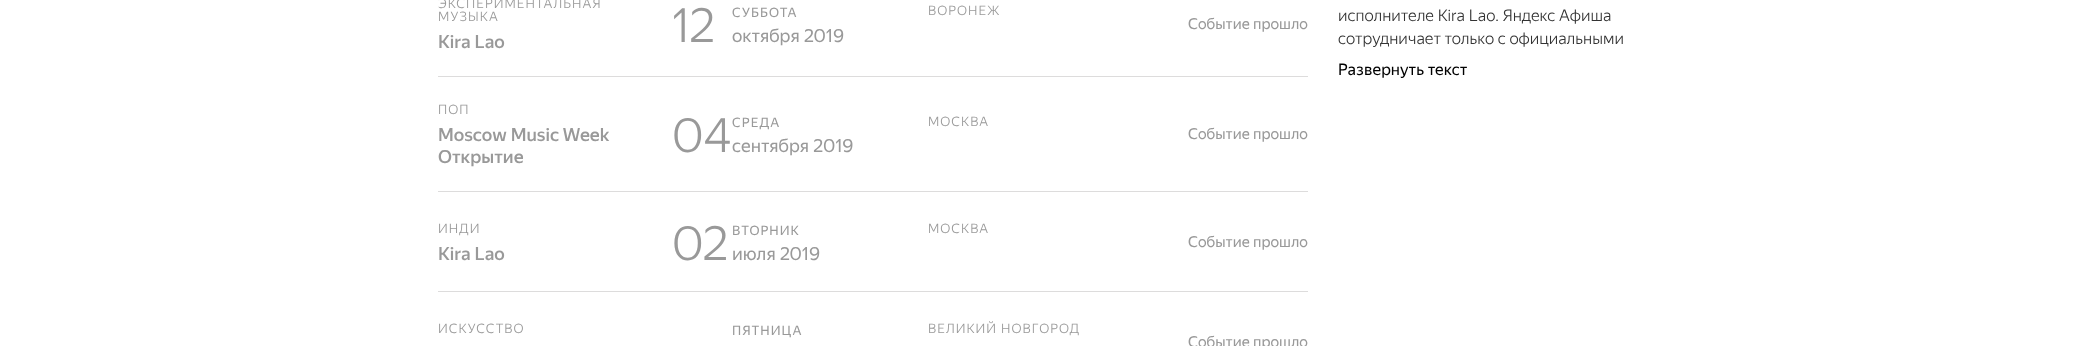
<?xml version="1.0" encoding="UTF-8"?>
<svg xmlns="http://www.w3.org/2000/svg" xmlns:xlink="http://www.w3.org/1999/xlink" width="2076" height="346">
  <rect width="100%" height="100%" fill="#ffffff" />
  <rect x="438" y="76" width="870" height="1" fill="#dddcdc" />
  <rect x="438" y="191" width="870" height="1" fill="#dddcdc" />
  <rect x="438" y="291" width="870" height="1" fill="#dddcdc" />
  <text x="438" y="8" style="font-family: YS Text; font-size: 13px; font-weight: 300; letter-spacing: 1px; fill: #999999">ЭКСПЕРИМЕНТАЛЬНАЯ</text>
  <text x="438" y="21" style="font-family: YS Text; font-size: 13px; font-weight: 300; letter-spacing: 1px; fill: #999999">МУЗЫКА</text>
  <text x="438" y="48" style="font-family: YS Text; font-size: 18px; font-weight: 500; fill: #999999">Kira Lao</text>
  <text x="672" y="42" style="font-family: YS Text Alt; font-size: 47px; font-weight: 300; fill: #999999">12</text>
  <text x="732" y="17" style="font-family: YS Text; font-size: 13px; letter-spacing: 1px; fill: #999999">СУББОТА</text>
  <text x="732" y="42" style="font-family: YS Text Alt; font-size: 18px; fill: #999999">октября 2019</text>
  <text x="928" y="15" style="font-family: YS Text; font-size: 13px; font-weight: 300; letter-spacing: 1px; fill: #999999">ВОРОНЕЖ</text>
  <text x="1188" y="29" style="font-family: YS Text; font-size: 15px; fill: #999999">Событие прошло</text>
  <text x="438" y="114" style="font-family: YS Text; font-size: 13px; font-weight: 300; letter-spacing: 1px; fill: #999999">ПОП</text>
  <text x="438" y="141" style="font-family: YS Text; font-size: 18px; font-weight: 500; fill: #999999">Moscow Music Week</text>
  <text x="438" y="163" style="font-family: YS Text; font-size: 18px; font-weight: 500; fill: #999999">Открытие</text>
  <text x="672" y="152" style="font-family: YS Text Alt; font-size: 47px; font-weight: 300; fill: #999999">04</text>
  <text x="732" y="127" style="font-family: YS Text; font-size: 13px; letter-spacing: 1px; fill: #999999">СРЕДА</text>
  <text x="732" y="152" style="font-family: YS Text Alt; font-size: 18px; fill: #999999">сентября 2019</text>
  <text x="928" y="126" style="font-family: YS Text; font-size: 13px; font-weight: 300; letter-spacing: 1px; fill: #999999">МОСКВА</text>
  <text x="1188" y="139" style="font-family: YS Text; font-size: 15px; fill: #999999">Событие прошло</text>
  <text x="438" y="233" style="font-family: YS Text; font-size: 13px; font-weight: 300; letter-spacing: 1px; fill: #999999">ИНДИ</text>
  <text x="438" y="260" style="font-family: YS Text; font-size: 18px; font-weight: 500; fill: #999999">Kira Lao</text>
  <text x="672" y="260" style="font-family: YS Text Alt; font-size: 47px; font-weight: 300; fill: #999999">02</text>
  <text x="732" y="235" style="font-family: YS Text; font-size: 13px; letter-spacing: 1px; fill: #999999">ВТОРНИК</text>
  <text x="732" y="260" style="font-family: YS Text Alt; font-size: 18px; fill: #999999">июля 2019</text>
  <text x="928" y="233" style="font-family: YS Text; font-size: 13px; font-weight: 300; letter-spacing: 1px; fill: #999999">МОСКВА</text>
  <text x="1188" y="247" style="font-family: YS Text; font-size: 15px; fill: #999999">Событие прошло</text>
  <text x="438" y="333" style="font-family: YS Text; font-size: 13px; font-weight: 300; letter-spacing: 1px; fill: #999999">ИСКУССТВО</text>
  <text x="732" y="335" style="font-family: YS Text; font-size: 13px; letter-spacing: 1px; fill: #999999">ПЯТНИЦА</text>
  <text x="928" y="333" style="font-family: YS Text; font-size: 13px; font-weight: 300; letter-spacing: 1px; fill: #999999">ВЕЛИКИЙ НОВГОРОД</text>
  <text x="1188" y="347" style="font-family: YS Text; font-size: 15px; fill: #999999">Событие прошло</text>
  <text x="1338" y="21" style="font-family: YS Text; font-size: 16px; font-weight: 300; fill: #333333">исполнителе Kira Lao. Яндекс Афиша</text>
  <text x="1338" y="44" style="font-family: YS Text; font-size: 16px; font-weight: 300; fill: #333333">сотрудничает только c официальными</text>
  <text x="1338" y="75" style="font-family: YS Text; font-size: 16px; fill: #000000">Развернуть текст</text>
</svg>
